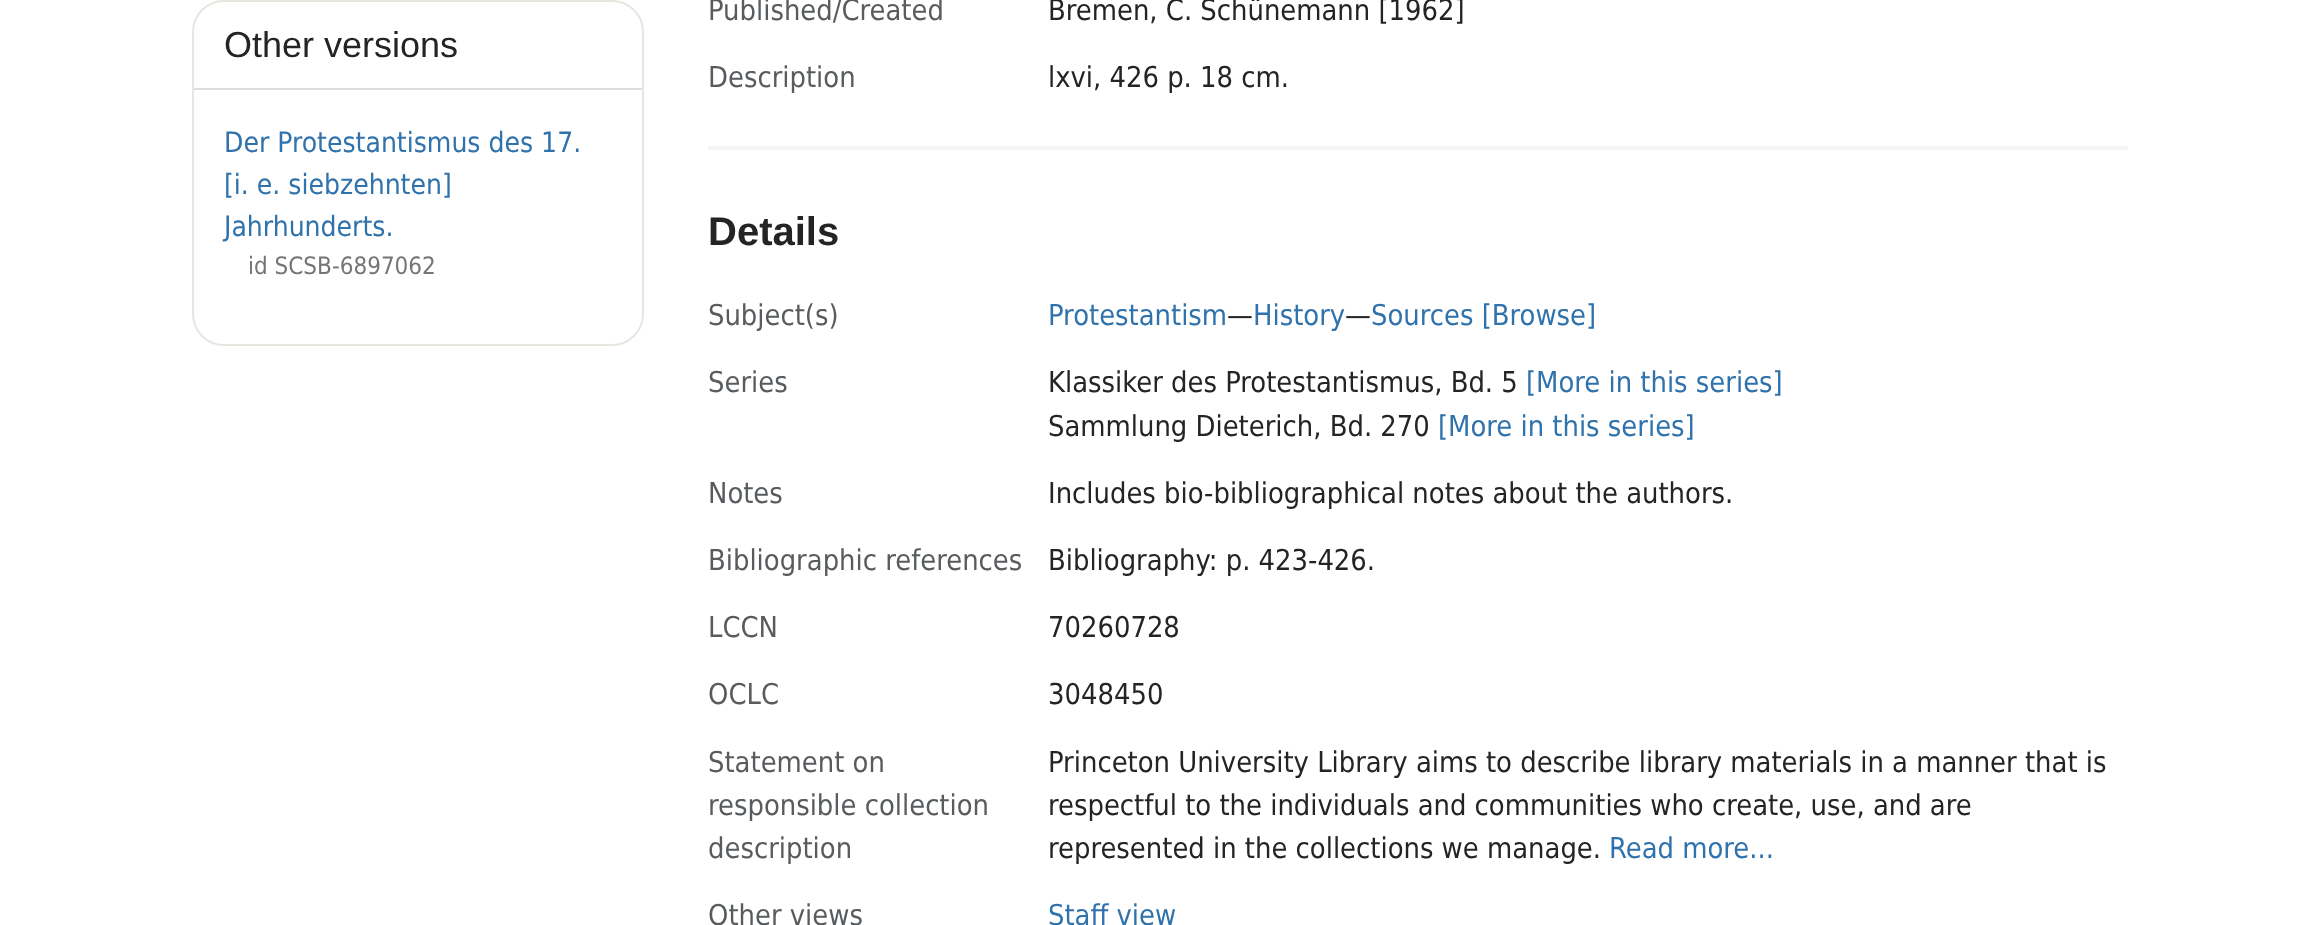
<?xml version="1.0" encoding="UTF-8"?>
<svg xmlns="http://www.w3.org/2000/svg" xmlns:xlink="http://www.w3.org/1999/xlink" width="2319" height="925">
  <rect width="100%" height="100%" fill="#ffffff" />
  <rect x="193" y="1" width="450" height="344" rx="31" fill="none" stroke="#e8e6df" stroke-width="2" />
  <rect x="194" y="88" width="448" height="2" fill="#dddddd" />
  <rect x="708" y="146" width="1420" height="4" fill="#f5f5f5" />
  <text x="224" y="57" style="font-family: Liberation Sans; font-size: 36px; fill: #242424">Other versions</text>
  <text x="224" y="152" style="font-family: DejaVu Sans; font-size: 28px; fill: #3072ab">Der Protestantismus des 17.</text>
  <text x="224" y="194" style="font-family: DejaVu Sans; font-size: 28px; fill: #3072ab">[i. e. siebzehnten]</text>
  <text x="224" y="236" style="font-family: DejaVu Sans; font-size: 28px; fill: #3072ab">Jahrhunderts.</text>
  <text x="248" y="274" style="font-family: DejaVu Sans; font-size: 24px; fill: #757575">id SCSB-6897062</text>
  <text x="708" y="20" style="font-family: DejaVu Sans; font-size: 28.8px; fill: #595c5f">Published/Created</text>
  <text x="1048" y="20" style="font-family: DejaVu Sans; font-size: 28.8px; fill: #242424">Bremen, C. Schünemann [1962]</text>
  <text x="708" y="87" style="font-family: DejaVu Sans; font-size: 28.8px; fill: #595c5f">Description</text>
  <text x="1048" y="87" style="font-family: DejaVu Sans; font-size: 28.8px; fill: #242424">lxvi, 426 p. 18 cm.</text>
  <text x="708" y="245" style="font-family: Liberation Sans; font-size: 40px; font-weight: bold; fill: #242424">Details</text>
  <text x="708" y="325" style="font-family: DejaVu Sans; font-size: 28.8px; fill: #595c5f">Subject(s)</text>
  <text x="1048" y="325" style="font-family: DejaVu Sans; font-size: 28.8px; fill: #3072ab">Protestantism</text>
  <text x="1227" y="325" style="font-family: DejaVu Sans; font-size: 28.8px; fill: #242424">—</text>
  <text x="1253" y="325" style="font-family: DejaVu Sans; font-size: 28.8px; fill: #3072ab">History</text>
  <text x="1345" y="325" style="font-family: DejaVu Sans; font-size: 28.8px; fill: #242424">—</text>
  <text x="1371" y="325" style="font-family: DejaVu Sans; font-size: 28.8px; fill: #3072ab">Sources [Browse]</text>
  <text x="708" y="392" style="font-family: DejaVu Sans; font-size: 28.8px; fill: #595c5f">Series</text>
  <text x="1048" y="392" style="font-family: DejaVu Sans; font-size: 28.8px; fill: #242424">Klassiker des Protestantismus, Bd. 5</text>
  <text x="1526" y="392" style="font-family: DejaVu Sans; font-size: 28.8px; fill: #3072ab">[More in this series]</text>
  <text x="1048" y="436" style="font-family: DejaVu Sans; font-size: 28.8px; fill: #242424">Sammlung Dieterich, Bd. 270</text>
  <text x="1438" y="436" style="font-family: DejaVu Sans; font-size: 28.8px; fill: #3072ab">[More in this series]</text>
  <text x="708" y="503" style="font-family: DejaVu Sans; font-size: 28.8px; fill: #595c5f">Notes</text>
  <text x="1048" y="503" style="font-family: DejaVu Sans; font-size: 28.8px; fill: #242424">Includes bio-bibliographical notes about the authors.</text>
  <text x="708" y="570" style="font-family: DejaVu Sans; font-size: 28.8px; fill: #595c5f">Bibliographic references</text>
  <text x="1048" y="570" style="font-family: DejaVu Sans; font-size: 28.8px; fill: #242424">Bibliography: p. 423-426.</text>
  <text x="708" y="637" style="font-family: DejaVu Sans; font-size: 28.8px; fill: #595c5f">LCCN</text>
  <text x="1048" y="637" style="font-family: DejaVu Sans; font-size: 28.8px; fill: #242424">70260728</text>
  <text x="708" y="704" style="font-family: DejaVu Sans; font-size: 28.8px; fill: #595c5f">OCLC</text>
  <text x="1048" y="704" style="font-family: DejaVu Sans; font-size: 28.8px; fill: #242424">3048450</text>
  <text x="708" y="772" style="font-family: DejaVu Sans; font-size: 28.8px; fill: #595c5f">Statement on</text>
  <text x="708" y="815" style="font-family: DejaVu Sans; font-size: 28.8px; fill: #595c5f">responsible collection</text>
  <text x="708" y="858" style="font-family: DejaVu Sans; font-size: 28.8px; fill: #595c5f">description</text>
  <text x="1048" y="772" style="font-family: DejaVu Sans; font-size: 28.8px; fill: #242424">Princeton University Library aims to describe library materials in a manner that is</text>
  <text x="1048" y="815" style="font-family: DejaVu Sans; font-size: 28.8px; fill: #242424">respectful to the individuals and communities who create, use, and are</text>
  <text x="1048" y="858" style="font-family: DejaVu Sans; font-size: 28.8px; fill: #242424">represented in the collections we manage.</text>
  <text x="1609" y="858" style="font-family: DejaVu Sans; font-size: 28.8px; fill: #3072ab">Read more...</text>
  <text x="708" y="925" style="font-family: DejaVu Sans; font-size: 28.8px; fill: #595c5f">Other views</text>
  <text x="1048" y="925" style="font-family: DejaVu Sans; font-size: 28.8px; fill: #3072ab">Staff view</text>
</svg>
